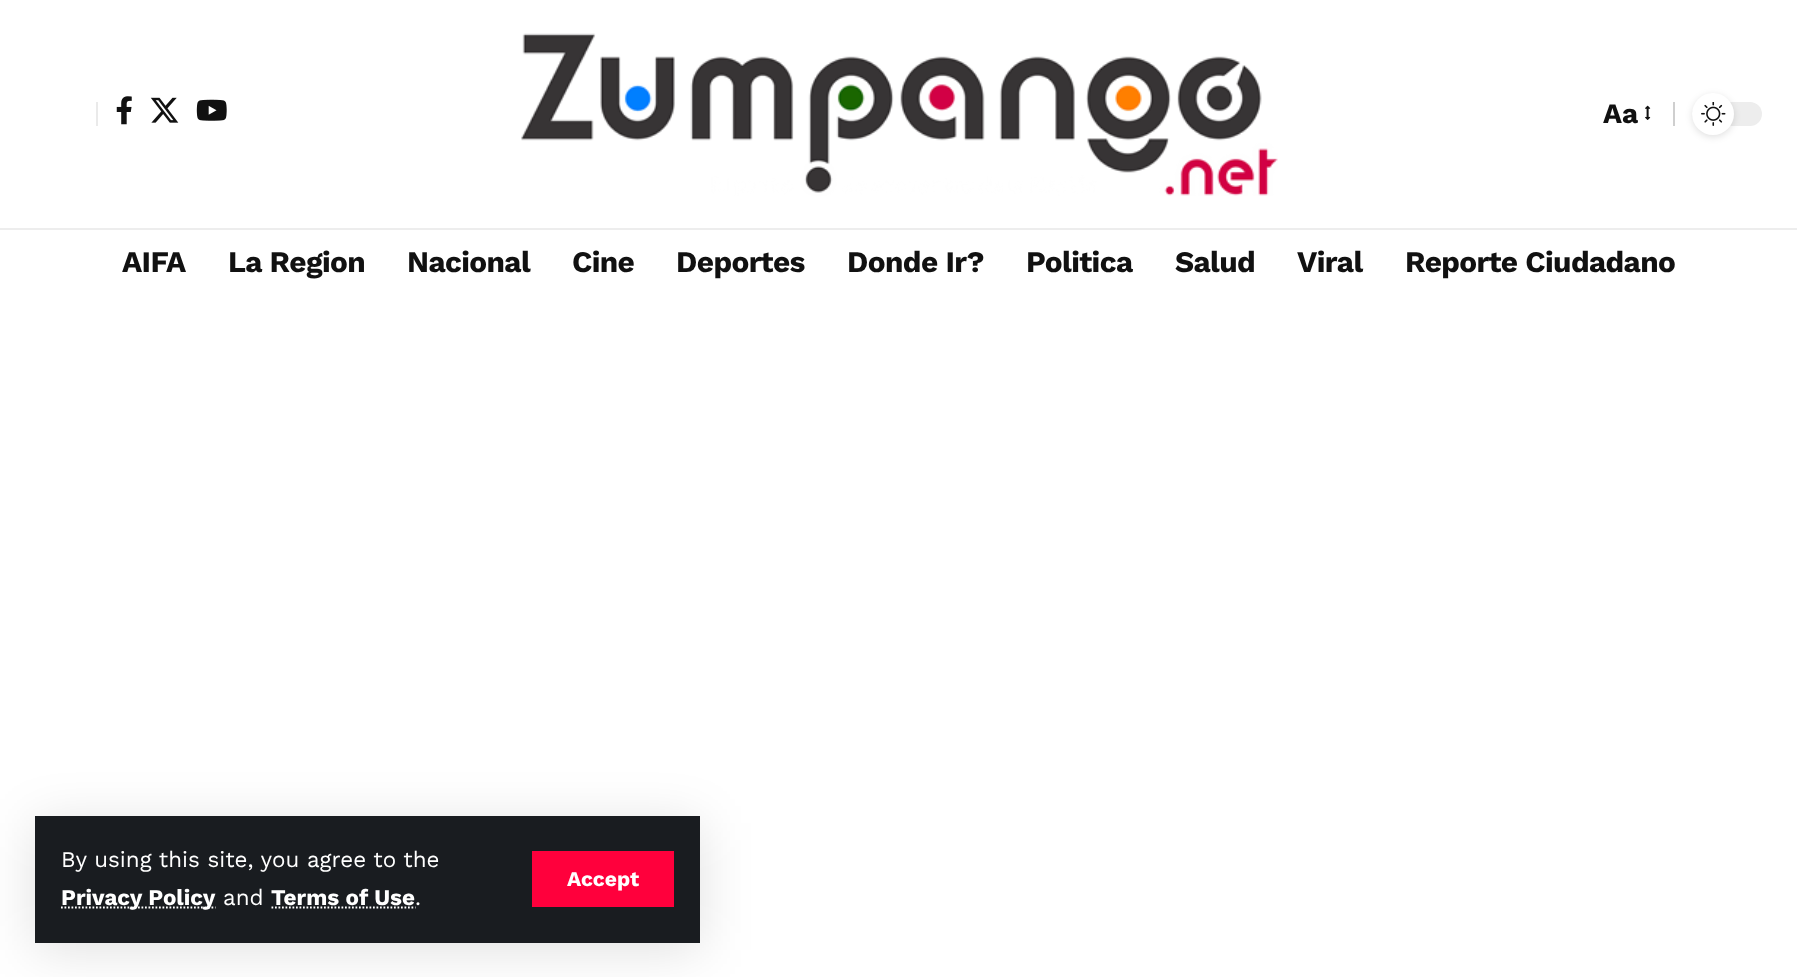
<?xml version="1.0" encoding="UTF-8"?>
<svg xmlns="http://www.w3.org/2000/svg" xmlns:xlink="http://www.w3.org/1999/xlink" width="1797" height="977">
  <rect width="100%" height="100%" fill="#ffffff" />
  <rect x="96" y="102" width="2" height="24" fill="#eaeaea" />
  <image x="116" y="96" width="16" height="29" xlink:href="image1.png" />
  <image x="150" y="97" width="29" height="26" xlink:href="image2.png" />
  <image x="196" y="99" width="31" height="22" xlink:href="image3.png" />
  <image x="521" y="33" width="757" height="163" xlink:href="image4.png" />
  <image x="1645" y="105" width="6" height="15" xlink:href="image5.png" />
  <rect x="1673" y="102" width="2" height="24" fill="#cfcfcf" />
  <rect x="1692" y="102" width="70" height="24" rx="12" fill="#ededed" />
  <rect x="1692" y="95" width="42" height="42" rx="21" fill="#000000" fill-opacity="0.12" filter="blur(3.5px)" />
  <circle cx="1713" cy="114" r="21" fill="#ffffff" />
  <image x="1701" y="102" width="25" height="24" xlink:href="image6.png" />
  <rect y="228" width="1797" height="2" fill="#ededed" />
  <rect x="35" y="823" width="665" height="127" fill="#000000" fill-opacity="0.12" filter="blur(26px)" />
  <rect x="35" y="816" width="665" height="127" fill="#191c20" />
  <path d="M 61 907.5 h 154.5" fill="none" stroke="#ffffff" stroke-width="1.8" stroke-dasharray="1.75 1.75" />
  <path d="M 271.5 907.5 h 144" fill="none" stroke="#ffffff" stroke-width="1.8" stroke-dasharray="1.75 1.75" />
  <rect x="532" y="851" width="142" height="56" fill="#ff003c" />
  <text x="1603" y="123" style="font-family: Work Sans; font-size: 28px; font-weight: bold; fill: #111111">Aa</text>
  <text x="122" y="272" style="font-family: Work Sans; font-size: 29.75px; font-weight: bold; letter-spacing: -0.6px; fill: #111111">AIFA</text>
  <text x="228" y="272" style="font-family: Work Sans; font-size: 29.75px; font-weight: bold; letter-spacing: -0.6px; fill: #111111">La Region</text>
  <text x="407" y="272" style="font-family: Work Sans; font-size: 29.75px; font-weight: bold; letter-spacing: -0.6px; fill: #111111">Nacional</text>
  <text x="572" y="272" style="font-family: Work Sans; font-size: 29.75px; font-weight: bold; letter-spacing: -0.6px; fill: #111111">Cine</text>
  <text x="676" y="272" style="font-family: Work Sans; font-size: 29.75px; font-weight: bold; letter-spacing: -0.6px; fill: #111111">Deportes</text>
  <text x="847" y="272" style="font-family: Work Sans; font-size: 29.75px; font-weight: bold; letter-spacing: -0.6px; fill: #111111">Donde Ir?</text>
  <text x="1026" y="272" style="font-family: Work Sans; font-size: 29.75px; font-weight: bold; letter-spacing: -0.6px; fill: #111111">Politica</text>
  <text x="1175" y="272" style="font-family: Work Sans; font-size: 29.75px; font-weight: bold; letter-spacing: -0.6px; fill: #111111">Salud</text>
  <text x="1297" y="272" style="font-family: Work Sans; font-size: 29.75px; font-weight: bold; letter-spacing: -0.6px; fill: #111111">Viral</text>
  <text x="1405" y="272" style="font-family: Work Sans; font-size: 29.75px; font-weight: bold; letter-spacing: -0.6px; fill: #111111">Reporte Ciudadano</text>
  <text x="61" y="867" style="font-family: Work Sans; font-size: 22.4px; fill: #ffffff">By using this site, you agree to the</text>
  <text x="61" y="905" style="font-family: Work Sans; font-size: 22.4px; font-weight: bold; fill: #ffffff">Privacy Policy</text>
  <text x="223" y="905" style="font-family: Work Sans; font-size: 22.4px; fill: #ffffff">and</text>
  <text x="271" y="905" style="font-family: Work Sans; font-size: 22.4px; font-weight: bold; fill: #ffffff">Terms of Use</text>
  <text x="415" y="905" style="font-family: Work Sans; font-size: 22.4px; fill: #ffffff">.</text>
  <text x="567" y="886" style="font-family: Work Sans; font-size: 21px; font-weight: bold; fill: #ffffff">Accept</text>
</svg>
